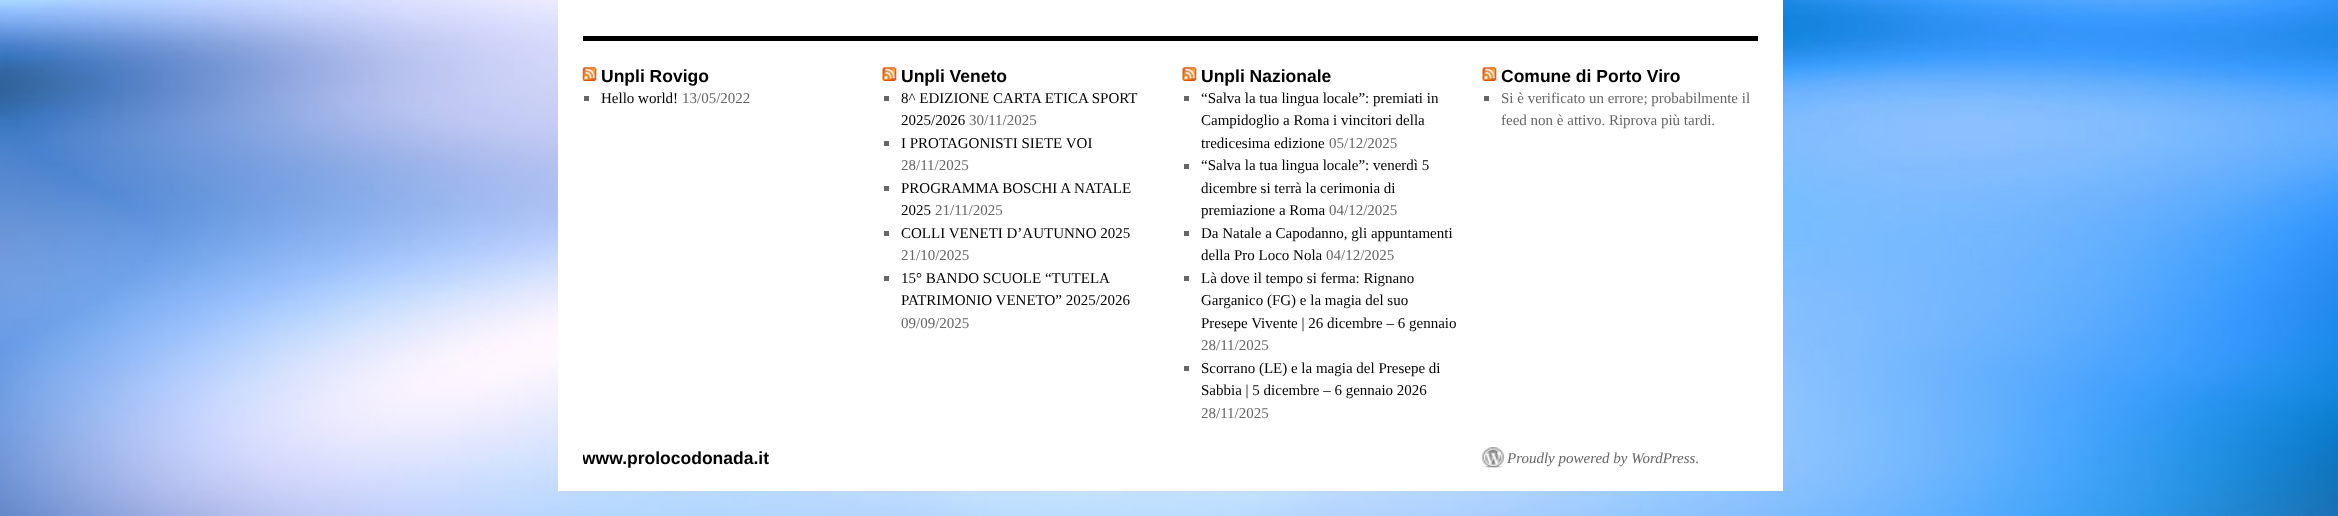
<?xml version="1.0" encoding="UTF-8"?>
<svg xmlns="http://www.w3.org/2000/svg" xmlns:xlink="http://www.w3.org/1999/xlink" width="2338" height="516">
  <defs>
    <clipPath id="clip1"><rect x="583" y="41" width="1175" height="450" /></clipPath>
  </defs>
  <rect width="100%" height="100%" fill="#ffffff" />
  <image x="0" y="0" width="2338" height="516" xlink:href="image1.png" />
  <rect x="558" width="1225" height="491" fill="#ffffff" />
  <rect x="583" y="36" width="1175" height="5" fill="#000000" />
  <image x="582" y="67" width="15" height="14" xlink:href="image2.png" />
  <rect x="584" y="96" width="5" height="5" fill="#666666" />
  <image x="882" y="67" width="15" height="14" xlink:href="image3.png" />
  <rect x="884" y="96" width="5" height="5" fill="#666666" />
  <rect x="884" y="141" width="5" height="5" fill="#666666" />
  <rect x="884" y="186" width="5" height="5" fill="#666666" />
  <rect x="884" y="231" width="5" height="5" fill="#666666" />
  <rect x="884" y="276" width="5" height="5" fill="#666666" />
  <image x="1182" y="67" width="15" height="14" xlink:href="image3.png" />
  <rect x="1184" y="96" width="5" height="5" fill="#666666" />
  <rect x="1184" y="164" width="5" height="5" fill="#666666" />
  <rect x="1184" y="231" width="5" height="5" fill="#666666" />
  <rect x="1184" y="276" width="5" height="5" fill="#666666" />
  <rect x="1184" y="366" width="5" height="5" fill="#666666" />
  <image x="1482" y="67" width="15" height="14" xlink:href="image3.png" />
  <rect x="1484" y="96" width="5" height="5" fill="#666666" />
  <image x="1482" y="447" width="22" height="21" xlink:href="image4.png" />
  <text x="601" y="82" style="font-family: Liberation Sans; font-size: 17.5px; font-weight: bold; fill: #000000">Unpli Rovigo</text>
  <text x="601" y="103" style="font-family: Liberation Serif; font-size: 15px; fill: #000000">Hello world!</text>
  <text x="682" y="103" style="font-family: Liberation Serif; font-size: 15px; fill: #666666">13/05/2022</text>
  <text x="901" y="82" style="font-family: Liberation Sans; font-size: 17.5px; font-weight: bold; fill: #000000">Unpli Veneto</text>
  <text x="901" y="103" style="font-family: Liberation Serif; font-size: 15px; fill: #000000">8^ EDIZIONE CARTA ETICA SPORT</text>
  <text x="901" y="125" style="font-family: Liberation Serif; font-size: 15px; fill: #000000">2025/2026</text>
  <text x="969" y="125" style="font-family: Liberation Serif; font-size: 15px; fill: #666666">30/11/2025</text>
  <text x="901" y="148" style="font-family: Liberation Serif; font-size: 15px; fill: #000000">I PROTAGONISTI SIETE VOI</text>
  <text x="901" y="170" style="font-family: Liberation Serif; font-size: 15px; fill: #666666">28/11/2025</text>
  <text x="901" y="193" style="font-family: Liberation Serif; font-size: 15px; fill: #000000">PROGRAMMA BOSCHI A NATALE</text>
  <text x="901" y="215" style="font-family: Liberation Serif; font-size: 15px; fill: #000000">2025</text>
  <text x="935" y="215" style="font-family: Liberation Serif; font-size: 15px; fill: #666666">21/11/2025</text>
  <text x="901" y="238" style="font-family: Liberation Serif; font-size: 15px; fill: #000000">COLLI VENETI D’AUTUNNO 2025</text>
  <text x="901" y="260" style="font-family: Liberation Serif; font-size: 15px; fill: #666666">21/10/2025</text>
  <text x="901" y="283" style="font-family: Liberation Serif; font-size: 15px; fill: #000000">15° BANDO SCUOLE “TUTELA</text>
  <text x="901" y="305" style="font-family: Liberation Serif; font-size: 15px; fill: #000000">PATRIMONIO VENETO” 2025/2026</text>
  <text x="901" y="328" style="font-family: Liberation Serif; font-size: 15px; fill: #666666">09/09/2025</text>
  <text x="1201" y="82" style="font-family: Liberation Sans; font-size: 17.5px; font-weight: bold; fill: #000000">Unpli Nazionale</text>
  <text x="1201" y="103" style="font-family: Liberation Serif; font-size: 15px; fill: #000000">“Salva la tua lingua locale”: premiati in</text>
  <text x="1201" y="125" style="font-family: Liberation Serif; font-size: 15px; fill: #000000">Campidoglio a Roma i vincitori della</text>
  <text x="1201" y="148" style="font-family: Liberation Serif; font-size: 15px; fill: #000000">tredicesima edizione</text>
  <text x="1329" y="148" style="font-family: Liberation Serif; font-size: 15px; fill: #666666">05/12/2025</text>
  <text x="1201" y="170" style="font-family: Liberation Serif; font-size: 15px; fill: #000000">“Salva la tua lingua locale”: venerdì 5</text>
  <text x="1201" y="193" style="font-family: Liberation Serif; font-size: 15px; fill: #000000">dicembre si terrà la cerimonia di</text>
  <text x="1201" y="215" style="font-family: Liberation Serif; font-size: 15px; fill: #000000">premiazione a Roma</text>
  <text x="1329" y="215" style="font-family: Liberation Serif; font-size: 15px; fill: #666666">04/12/2025</text>
  <text x="1201" y="238" style="font-family: Liberation Serif; font-size: 15px; fill: #000000">Da Natale a Capodanno, gli appuntamenti</text>
  <text x="1201" y="260" style="font-family: Liberation Serif; font-size: 15px; fill: #000000">della Pro Loco Nola</text>
  <text x="1326" y="260" style="font-family: Liberation Serif; font-size: 15px; fill: #666666">04/12/2025</text>
  <text x="1201" y="283" style="font-family: Liberation Serif; font-size: 15px; fill: #000000">Là dove il tempo si ferma: Rignano</text>
  <text x="1201" y="305" style="font-family: Liberation Serif; font-size: 15px; fill: #000000">Garganico (FG) e la magia del suo</text>
  <text x="1201" y="328" style="font-family: Liberation Serif; font-size: 15px; fill: #000000">Presepe Vivente | 26 dicembre – 6 gennaio</text>
  <text x="1201" y="350" style="font-family: Liberation Serif; font-size: 15px; fill: #666666">28/11/2025</text>
  <text x="1201" y="373" style="font-family: Liberation Serif; font-size: 15px; fill: #000000">Scorrano (LE) e la magia del Presepe di</text>
  <text x="1201" y="395" style="font-family: Liberation Serif; font-size: 15px; fill: #000000">Sabbia | 5 dicembre – 6 gennaio 2026</text>
  <text x="1201" y="418" style="font-family: Liberation Serif; font-size: 15px; fill: #666666">28/11/2025</text>
  <text x="1501" y="82" style="font-family: Liberation Sans; font-size: 17.5px; font-weight: bold; fill: #000000">Comune di Porto Viro</text>
  <text x="1501" y="103" style="font-family: Liberation Serif; font-size: 15px; fill: #666666">Si è verificato un errore; probabilmente il</text>
  <text x="1501" y="125" style="font-family: Liberation Serif; font-size: 15px; fill: #666666">feed non è attivo. Riprova più tardi.</text>
  <g clip-path="url(#clip1)">
    <text x="582" y="464" style="font-family: Liberation Sans; font-size: 17.5px; font-weight: bold; fill: #000000">www.prolocodonada.it</text>
  </g>
  <text x="1507" y="463" style="font-family: Liberation Serif; font-size: 15px; font-style: italic; fill: #666666">Proudly powered by WordPress.</text>
</svg>
